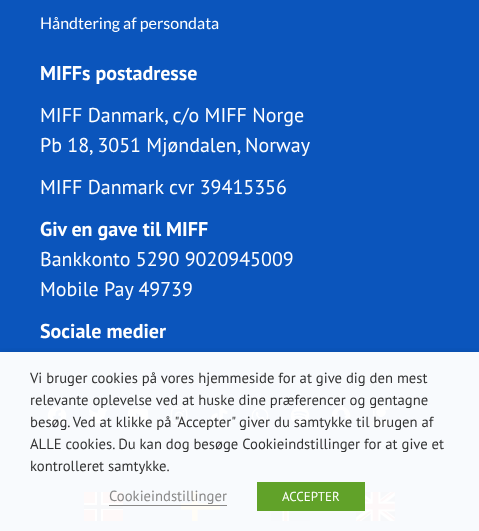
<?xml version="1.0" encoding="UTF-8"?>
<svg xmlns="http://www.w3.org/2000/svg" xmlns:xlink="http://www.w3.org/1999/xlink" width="479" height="531">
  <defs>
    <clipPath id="clip1"><rect x="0" y="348" width="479" height="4" /></clipPath>
  </defs>
  <rect width="100%" height="100%" fill="#0b55bc" />
  <rect y="352" width="479" height="179" fill="#f8fafd" />
  <image x="47" y="406" width="20" height="19" xlink:href="image1.png" />
  <image x="88" y="408" width="20" height="16" xlink:href="image2.png" />
  <image x="127" y="408" width="22" height="15" xlink:href="image3.png" />
  <image x="170" y="407" width="18" height="18" xlink:href="image4.png" />
  <image x="210" y="406" width="18" height="20" xlink:href="image5.png" />
  <image x="251" y="407" width="18" height="18" xlink:href="image6.png" />
  <image x="290" y="406" width="20" height="20" xlink:href="image7.png" />
  <image x="331" y="406" width="20" height="20" xlink:href="image8.png" />
  <image x="372" y="406" width="18" height="20" xlink:href="image9.png" />
  <rect x="84" y="492" width="39" height="29" fill="#fef9f9" />
  <rect x="95" y="492" width="8" height="29" fill="#ffffff" />
  <rect x="84" y="503" width="39" height="7" fill="#ffffff" />
  <rect x="97" y="492" width="4" height="29" fill="#f7f8fa" />
  <path d="M 192 492 v 11.5 h -11 v 6 h 11 v 11.5 h 5.5 v -11.5 h 22.5 v -6 h -22.5 v -11.5 z" fill="#fffdf7" />
  <image x="356" y="492" width="39" height="29" xlink:href="image10.png" />
  <rect x="84" y="505" width="39" height="4" fill="#f7f8fa" />
  <image x="271" y="511" width="39" height="10" xlink:href="image11.png" />
  <g clip-path="url(#clip1)">
    <rect y="357" width="479" height="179" fill="#000000" fill-opacity="0.5" filter="blur(5px)" />
  </g>
  <rect x="109" y="505" width="118" height="1" fill="#898888" />
  <rect x="257" y="482" width="108" height="29" fill="#61a229" />
  <text x="40" y="29" style="font-family: Lato; font-size: 16px; fill: #ffffff">Håndtering af persondata</text>
  <text x="40" y="80" style="font-family: PT Sans; font-size: 20px; font-weight: bold; fill: #ffffff">MIFFs postadresse</text>
  <text x="40" y="122" style="font-family: PT Sans; font-size: 20px; fill: #ffffff">MIFF Danmark, c/o MIFF Norge</text>
  <text x="40" y="152" style="font-family: PT Sans; font-size: 20px; fill: #ffffff">Pb 18, 3051 Mjøndalen, Norway</text>
  <text x="40" y="194" style="font-family: PT Sans; font-size: 20px; fill: #ffffff">MIFF Danmark cvr 39415356</text>
  <text x="40" y="236" style="font-family: PT Sans; font-size: 20px; font-weight: bold; fill: #ffffff">Giv en gave til MIFF</text>
  <text x="40" y="266" style="font-family: PT Sans; font-size: 20px; fill: #ffffff">Bankkonto 5290 9020945009</text>
  <text x="40" y="296" style="font-family: PT Sans; font-size: 20px; fill: #ffffff">Mobile Pay 49739</text>
  <text x="40" y="338" style="font-family: PT Sans; font-size: 20px; font-weight: bold; fill: #ffffff">Sociale medier</text>
  <text x="30" y="383" style="font-family: PT Sans; font-size: 14.7px; fill: #333333">Vi bruger cookies på vores hjemmeside for at give dig den mest</text>
  <text x="30" y="405" style="font-family: PT Sans; font-size: 14.7px; fill: #333333">relevante oplevelse ved at huske dine præferencer og gentagne</text>
  <text x="30" y="427" style="font-family: PT Sans; font-size: 14.7px; fill: #333333">besøg. Ved at klikke på "Accepter" giver du samtykke til brugen af</text>
  <text x="30" y="449" style="font-family: PT Sans; font-size: 14.7px; fill: #333333">ALLE cookies. Du kan dog besøge Cookieindstillinger for at give et</text>
  <text x="30" y="471" style="font-family: PT Sans; font-size: 14.7px; fill: #333333">kontrolleret samtykke.</text>
  <text x="109" y="501" style="font-family: PT Sans; font-size: 14.7px; fill: #898888">Cookieindstillinger</text>
  <text x="282" y="501" style="font-family: PT Sans; font-size: 13px; fill: #ffffff">ACCEPTER</text>
</svg>
